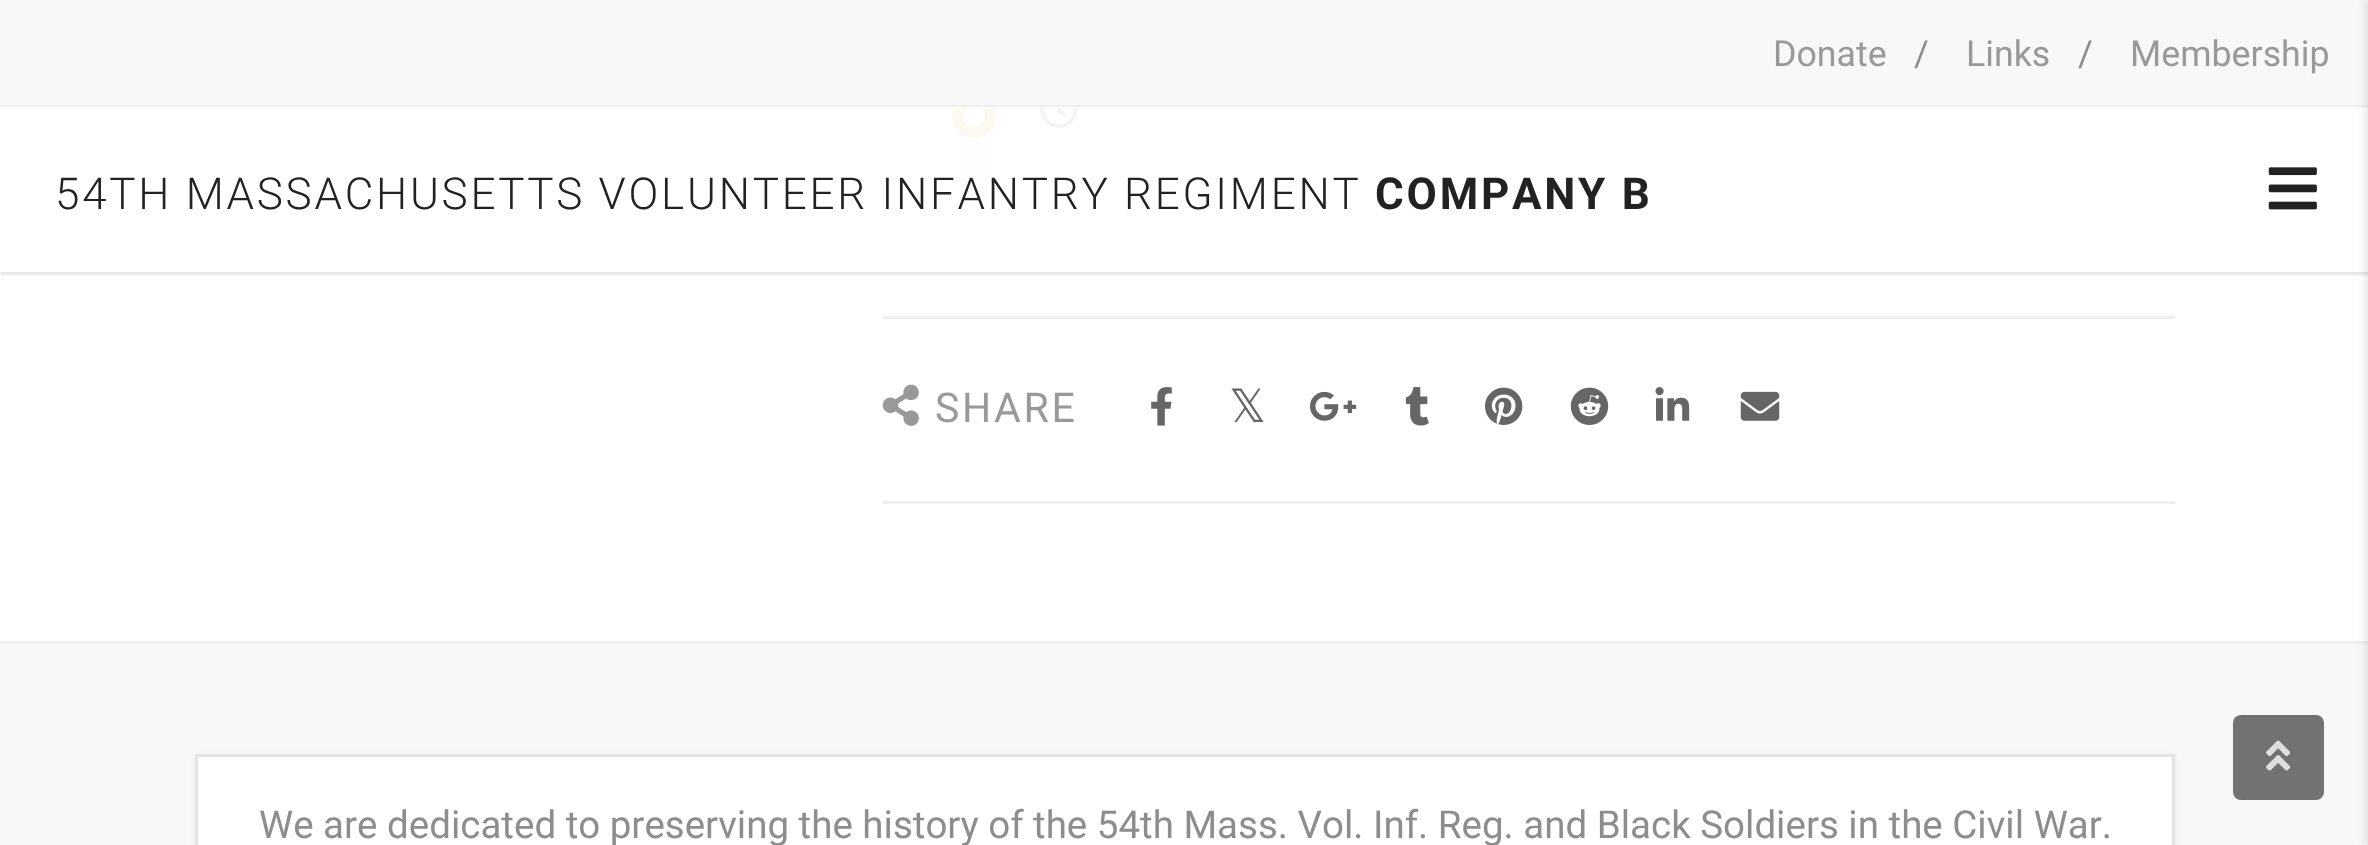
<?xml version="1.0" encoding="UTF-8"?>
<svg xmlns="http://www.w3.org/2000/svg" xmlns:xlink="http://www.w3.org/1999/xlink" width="2368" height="845">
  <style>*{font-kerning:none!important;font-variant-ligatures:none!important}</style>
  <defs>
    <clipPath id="clip1"><rect x="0" y="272" width="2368" height="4" /></clipPath>
  </defs>
  <rect width="100%" height="100%" fill="#ffffff" />
  <rect x="883" y="108" width="1292" height="153" fill="#f8f8f8" />
  <rect x="960" y="-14" width="27" height="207" rx="13.5" fill="#efefef" />
  <circle cx="974" cy="116" r="16.5" fill="#f8f8f8" stroke="#dabc74" stroke-width="11" />
  <rect width="2368" height="105" fill="#f8f8f8" />
  <rect y="105" width="2368" height="3" fill="#efefef" />
  <image x="1040" y="108" width="38" height="20" xlink:href="image2.png" />
  <g clip-path="url(#clip1)">
    <rect y="110" width="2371" height="165" fill="#000000" fill-opacity="0.1" filter="blur(1.5px)" />
  </g>
  <rect y="107" width="2368" height="154" fill="#ffffff" fill-opacity="0.9" />
  <image x="2268" y="167" width="49" height="43" xlink:href="image1.png" />
  <rect x="883" y="316" width="1292" height="3" fill="#efefef" />
  <rect x="883" y="501" width="1292" height="3" fill="#efefef" />
  <image x="882" y="384" width="37" height="42" xlink:href="image3.png" />
  <image x="1151" y="387" width="21" height="39" xlink:href="image4.png" />
  <image x="1310" y="391" width="47" height="30" xlink:href="image5.png" />
  <image x="1405" y="387" width="24" height="39" xlink:href="image6.png" />
  <image x="1485" y="387" width="38" height="38" xlink:href="image7.png" />
  <image x="1570" y="387" width="39" height="38" xlink:href="image8.png" />
  <image x="1655" y="387" width="35" height="34" xlink:href="image9.png" />
  <image x="1740" y="391" width="40" height="30" xlink:href="image10.png" />
  <rect y="644" width="2368" height="201" fill="#f8f8f8" />
  <rect y="641" width="2368" height="3" fill="#efefef" />
  <rect x="195" y="756" width="1980" height="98" fill="#000000" fill-opacity="0.05" filter="blur(3px)" />
  <rect x="196.5" y="755.5" width="1977" height="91" fill="#ffffff" stroke="#e4e4e3" stroke-width="3" />
  <rect x="2233" y="715" width="91" height="85" rx="8" fill="#727272" />
  <image x="2266" y="740" width="25" height="31" xlink:href="image11.png" />
  <rect x="2365" width="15" height="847" fill="#000000" fill-opacity="0.1" filter="blur(4px)" />
  <text x="1773" y="66" style="font-family: Roboto; font-size: 35.75px; fill: #999999">Donate</text>
  <text x="1914" y="66" style="font-family: Roboto; font-size: 35.75px; fill: #8d8d8d">/</text>
  <text x="1966" y="66" style="font-family: Roboto; font-size: 35.75px; fill: #999999">Links</text>
  <text x="2078" y="66" style="font-family: Roboto; font-size: 35.75px; fill: #8d8d8d">/</text>
  <text x="2130" y="66" style="font-family: Roboto; font-size: 35.75px; fill: #999999">Membership</text>
  <text x="55" y="209" style="font-family: Roboto; font-size: 44px; font-weight: 300; letter-spacing: 2.75px; fill: #222222">54TH MASSACHUSETTS VOLUNTEER INFANTRY REGIMENT</text>
  <text x="1375" y="209" style="font-family: Roboto; font-size: 44px; font-weight: bold; letter-spacing: 2.75px; fill: #222222">COMPANY B</text>
  <text x="935" y="422" style="font-family: Roboto; font-size: 41px; letter-spacing: 2.75px; fill: #999999">SHARE</text>
  <text x="1229" y="422" style="font-family: DejaVu Sans; font-size: 46px; fill: #666666">𝕏</text>
  <text x="259" y="838" style="font-family: Roboto; font-size: 38.5px; fill: #8d8d8d">We are dedicated to preserving the history of the 54th Mass. Vol. Inf. Reg. and Black Soldiers in the Civil War.</text>
</svg>
